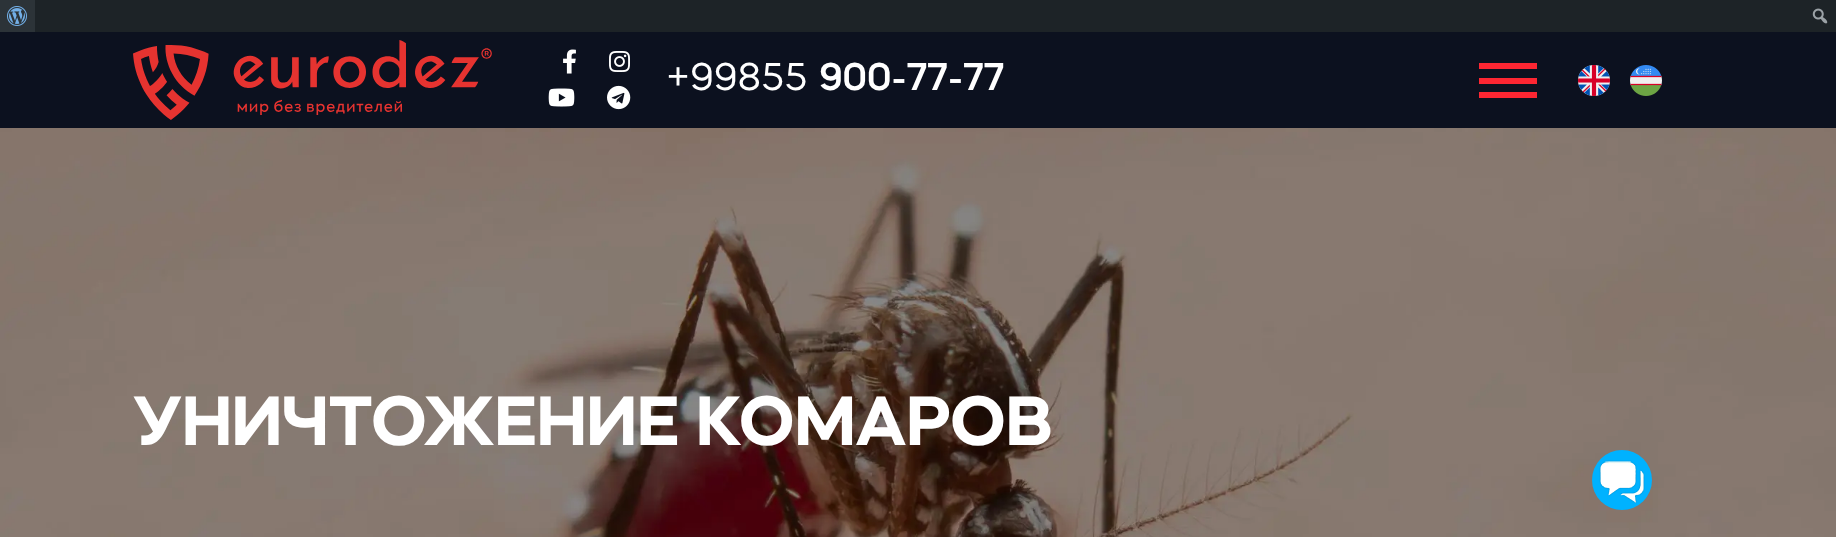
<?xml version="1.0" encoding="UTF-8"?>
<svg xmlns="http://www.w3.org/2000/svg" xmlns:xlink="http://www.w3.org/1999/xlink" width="1836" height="537">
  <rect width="100%" height="100%" fill="#ffffff" />
  <rect x="35" width="1801" height="32" fill="#1d2327" />
  <rect width="35" height="32" fill="#2c3338" />
  <image x="7" y="6" width="20" height="20" xlink:href="image1.png" />
  <image x="1812" y="8" width="16" height="16" xlink:href="image2.png" />
  <rect y="32" width="1836" height="96" fill="#0c111f" />
  <image x="133" y="40" width="359" height="80" xlink:href="image3.png" />
  <image x="563" y="49" width="13" height="25" xlink:href="image4.png" />
  <image x="609" y="51" width="21" height="21" xlink:href="image5.png" />
  <image x="548" y="88" width="27" height="19" xlink:href="image6.png" />
  <image x="607" y="85" width="24" height="25" xlink:href="image7.png" />
  <rect x="1479" y="63" width="58" height="6" fill="#fd2632" />
  <rect x="1479" y="78" width="58" height="6" fill="#fd2632" />
  <rect x="1479" y="92" width="58" height="6" fill="#fd2632" />
  <image x="1578" y="65" width="32" height="31" xlink:href="image8.png" />
  <image x="1630" y="65" width="32" height="31" xlink:href="image9.png" />
  <image x="0" y="128" width="1836" height="409" xlink:href="image10.png" />
  <circle cx="1622" cy="480" r="30" fill="#00b2ff" />
  <image x="1599" y="460" width="46" height="43" xlink:href="image11.png" />
  <text x="666" y="90" style="font-family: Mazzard; font-size: 40px; fill: #ffffff">+99855</text>
  <text x="819" y="90" style="font-family: Mazzard; font-size: 40px; font-weight: 600; fill: #ffffff">900-77-77</text>
  <text x="133" y="445" style="font-family: Mazzard; font-size: 72px; font-weight: bold; fill: #ffffff">УНИЧТОЖЕНИЕ КОМАРОВ</text>
</svg>
